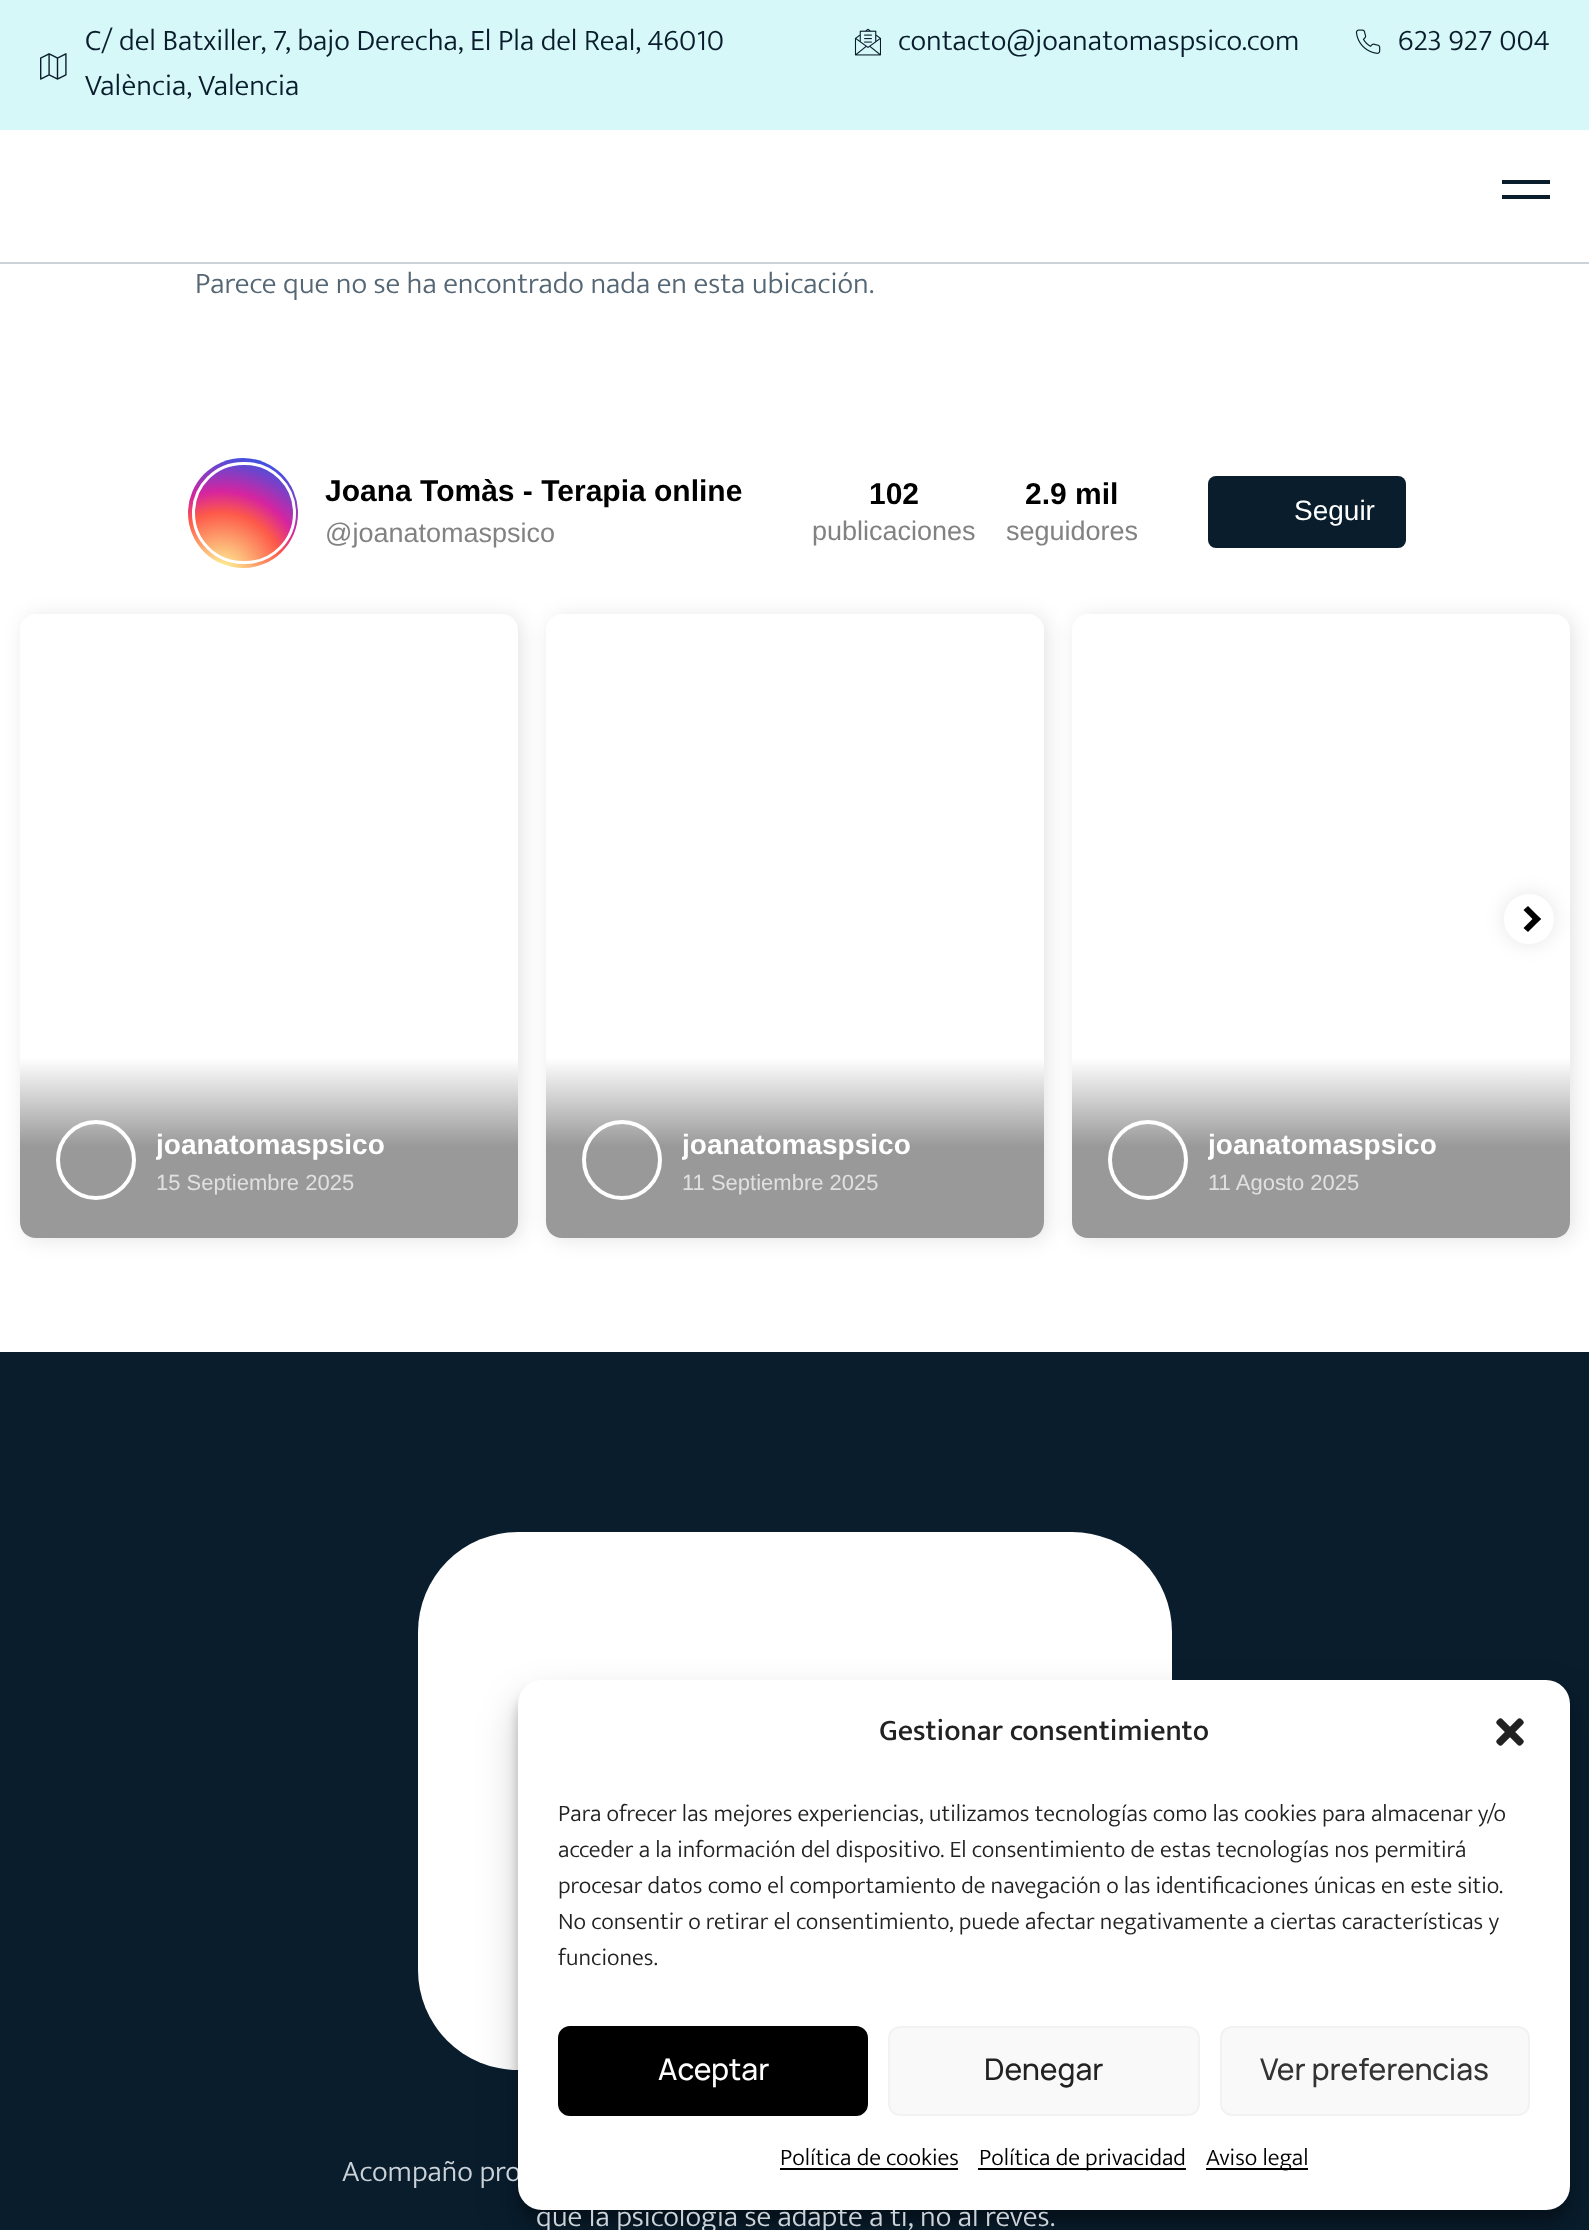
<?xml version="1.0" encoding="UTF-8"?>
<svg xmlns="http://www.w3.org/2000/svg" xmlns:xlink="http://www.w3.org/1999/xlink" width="1589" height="2230">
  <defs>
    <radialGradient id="g1" gradientUnits="userSpaceOnUse" cx="221" cy="576" r="141"><stop offset="0" stop-color="#fdf497" /><stop offset="0.05" stop-color="#fdf497" /><stop offset="0.45" stop-color="#fd5949" /><stop offset="0.6" stop-color="#d6249f" /><stop offset="0.9" stop-color="#285aeb" /></radialGradient>
    <clipPath id="clip1"><path d="M 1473 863 h 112 v 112 h -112 z m 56 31 c 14 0 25 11 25 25 c 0 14 -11 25 -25 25 c -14 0 -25 -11 -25 -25 c 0 -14 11 -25 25 -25 z" clip-rule="evenodd" /></clipPath>
    <linearGradient id="g2" gradientUnits="userSpaceOnUse" x1="269" y1="1058" x2="269" y2="1860"><stop offset="0" stop-color="#000000" stop-opacity="0" /><stop offset="0.11" stop-color="#000000" stop-opacity="0.4" /></linearGradient>
    <linearGradient id="g3" gradientUnits="userSpaceOnUse" x1="795" y1="1058" x2="795" y2="1860"><stop offset="0" stop-color="#000000" stop-opacity="0" /><stop offset="0.11" stop-color="#000000" stop-opacity="0.4" /></linearGradient>
    <linearGradient id="g4" gradientUnits="userSpaceOnUse" x1="1321" y1="1058" x2="1321" y2="1860"><stop offset="0" stop-color="#000000" stop-opacity="0" /><stop offset="0.11" stop-color="#000000" stop-opacity="0.4" /></linearGradient>
    <clipPath id="clip2"><rect x="156" y="1122" width="228" height="42" /></clipPath>
    <clipPath id="clip3"><rect x="682" y="1122" width="228" height="42" /></clipPath>
    <clipPath id="clip4"><rect x="1208" y="1122" width="228" height="42" /></clipPath>
  </defs>
  <rect width="100%" height="100%" fill="#ffffff" />
  <rect width="1589" height="130" fill="#d7f8f8" />
  <image x="40" y="53" width="27" height="27" xlink:href="image1.png" />
  <image x="854" y="28" width="27" height="28" xlink:href="image2.png" />
  <image x="1355" y="29" width="26" height="25" xlink:href="image3.png" />
  <rect y="262" width="1589" height="2" fill="#cbd2d8" />
  <path d="M 1502 180 v 4 h 48 v -4 z m 0 15 v 4 h 48 v -4 z" fill="#091d2d" />
  <circle cx="243" cy="513" r="55" fill="url(#g1)" />
  <rect x="193.5" y="463.5" width="101" height="99" rx="49.5" fill="none" stroke="#ffffff" stroke-width="3" />
  <rect x="1208" y="476" width="198" height="72" rx="8" fill="#091d2d" />
  <rect x="550" y="616" width="498" height="624" rx="16" fill="#000000" fill-opacity="0.1" filter="blur(10px)" />
  <rect x="1076" y="616" width="498" height="624" rx="16" fill="#000000" fill-opacity="0.1" filter="blur(10px)" />
  <rect x="1072" y="614" width="498" height="624" rx="16" fill="#ffffff" />
  <g clip-path="url(#clip1)">
    <rect x="1504" y="894" width="50" height="50" rx="25" fill="#000000" fill-opacity="0.1" filter="blur(10px)" />
  </g>
  <path d="M 1541 919 l -13 13 l -4.5 -4 l 13 -13 z" fill="#000000" />
  <path d="M 1541 919 l -4.5 4 l -13 -13 l 4.5 -4 z" fill="#000000" />
  <rect x="24" y="616" width="498" height="624" rx="16" fill="#000000" fill-opacity="0.1" filter="blur(10px)" />
  <rect x="20" y="614" width="498" height="624" rx="16" fill="#ffffff" />
  <path d="M 20 1058 h 498 v 164 c 0 9 -7 16 -16 16 h -466 c -9 0 -16 -7 -16 -16 z" fill="url(#g2)" />
  <circle cx="96" cy="1160" r="38" fill="none" stroke="#ffffff" stroke-width="4" />
  <rect x="546" y="614" width="498" height="624" rx="16" fill="#ffffff" />
  <path d="M 546 1058 h 498 v 164 c 0 9 -7 16 -16 16 h -466 c -9 0 -16 -7 -16 -16 z" fill="url(#g3)" />
  <circle cx="622" cy="1160" r="38" fill="none" stroke="#ffffff" stroke-width="4" />
  <path d="M 1072 1058 h 498 v 164 c 0 9 -7 16 -16 16 h -466 c -9 0 -16 -7 -16 -16 z" fill="url(#g4)" />
  <circle cx="1148" cy="1160" r="38" fill="none" stroke="#ffffff" stroke-width="4" />
  <rect y="1352" width="1589" height="878" fill="#091d2d" />
  <rect x="418" y="1532" width="754" height="538" rx="100" fill="#ffffff" />
  <rect x="518" y="1692" width="1052" height="530" rx="24" fill="#000000" fill-opacity="0.23" filter="blur(6px)" />
  <rect x="518" y="1700" width="1052" height="530" rx="24" fill="#000000" fill-opacity="0.19" filter="blur(20px)" />
  <text x="85" y="50" style="font-family: Mukta; font-size: 30px; font-weight: 300; fill: #091d2d">C/ del Batxiller, 7, bajo Derecha, El Pla del Real, 46010</text>
  <text x="85" y="95" style="font-family: Mukta; font-size: 30px; font-weight: 300; fill: #091d2d">València, Valencia</text>
  <text x="898" y="50" style="font-family: Mukta; font-size: 30px; font-weight: 300; fill: #091d2d">contacto@joanatomaspsico.com</text>
  <text x="1398" y="50" style="font-family: Mukta; font-size: 30px; font-weight: 300; fill: #091d2d">623 927 004</text>
  <text x="195" y="293" style="font-family: Mukta; font-size: 30px; font-weight: 300; fill: #556775">Parece que no se ha encontrado nada en esta ubicación.</text>
  <text x="325" y="501" style="font-family: Liberation Sans; font-size: 30px; font-weight: bold; fill: #000000">Joana Tomàs - Terapia online</text>
  <text x="325" y="542" style="font-family: Liberation Sans; font-size: 27px; fill: #828282">@joanatomaspsico</text>
  <text x="869" y="504" style="font-family: Liberation Sans; font-size: 30px; font-weight: bold; fill: #000000">102</text>
  <text x="812" y="540" style="font-family: Liberation Sans; font-size: 27px; fill: #828282">publicaciones</text>
  <text x="1025" y="504" style="font-family: Liberation Sans; font-size: 30px; font-weight: bold; fill: #000000">2.9 mil</text>
  <text x="1006" y="540" style="font-family: Liberation Sans; font-size: 27px; fill: #828282">seguidores</text>
  <text x="1294" y="520" style="font-family: Liberation Sans; font-size: 28px; fill: #ffffff">Seguir</text>
  <g clip-path="url(#clip2)">
    <text x="156" y="1154" style="font-family: Liberation Sans; font-size: 28px; font-weight: bold; fill: #ffffff">joanatomaspsico</text>
  </g>
  <text x="156" y="1190" style="font-family: Liberation Sans; font-size: 22px; fill: #e0e0e0">15 Septiembre 2025</text>
  <g clip-path="url(#clip3)">
    <text x="682" y="1154" style="font-family: Liberation Sans; font-size: 28px; font-weight: bold; fill: #ffffff">joanatomaspsico</text>
  </g>
  <text x="682" y="1190" style="font-family: Liberation Sans; font-size: 22px; fill: #e0e0e0">11 Septiembre 2025</text>
  <g clip-path="url(#clip4)">
    <text x="1208" y="1154" style="font-family: Liberation Sans; font-size: 28px; font-weight: bold; fill: #ffffff">joanatomaspsico</text>
  </g>
  <text x="1208" y="1190" style="font-family: Liberation Sans; font-size: 22px; fill: #e0e0e0">11 Agosto 2025</text>
  <text x="342" y="2181" style="font-family: Mukta; font-size: 30px; font-weight: 300; fill: #cbd2d8">Acompaño pro</text>
  <text x="536" y="2226" style="font-family: Mukta; font-size: 30px; font-weight: 300; fill: #cbd2d8">que la psicología se adapte a ti, no al revés.</text>
  <rect x="518" y="1680" width="1052" height="530" rx="24" fill="#ffffff" />
  <text x="879" y="1740" style="font-family: Mukta; font-size: 30px; font-weight: 500; fill: #222222">Gestionar consentimiento</text>
  <image x="1496" y="1718" width="28" height="28" xlink:href="image4.png" />
  <text x="558" y="1821" style="font-family: Mukta; font-size: 24px; font-weight: 300; fill: #222222">Para ofrecer las mejores experiencias, utilizamos tecnologías como las cookies para almacenar y/o</text>
  <text x="558" y="1857" style="font-family: Mukta; font-size: 24px; font-weight: 300; fill: #222222">acceder a la información del dispositivo. El consentimiento de estas tecnologías nos permitirá</text>
  <text x="558" y="1893" style="font-family: Mukta; font-size: 24px; font-weight: 300; fill: #222222">procesar datos como el comportamiento de navegación o las identificaciones únicas en este sitio.</text>
  <text x="558" y="1929" style="font-family: Mukta; font-size: 24px; font-weight: 300; fill: #222222">No consentir o retirar el consentimiento, puede afectar negativamente a ciertas características y</text>
  <text x="558" y="1965" style="font-family: Mukta; font-size: 24px; font-weight: 300; fill: #222222">funciones.</text>
  <rect x="559" y="2027" width="308" height="88" rx="11" fill="#000000" stroke="#000000" stroke-width="2" />
  <text x="658" y="2080" style="font-family: Manrope; font-size: 30px; font-weight: 500; fill: #ffffff">Aceptar</text>
  <rect x="889" y="2027" width="310" height="88" rx="11" fill="#f9f9f9" stroke="#f2f2f2" stroke-width="2" />
  <text x="984" y="2080" style="font-family: Manrope; font-size: 30px; font-weight: 500; fill: #222222">Denegar</text>
  <rect x="1221" y="2027" width="308" height="88" rx="11" fill="#f9f9f9" stroke="#f2f2f2" stroke-width="2" />
  <text x="1260" y="2080" style="font-family: Manrope; font-size: 30px; font-weight: 500; fill: #333333">Ver preferencias</text>
  <text x="780" y="2165" style="font-family: Mukta; font-size: 24px; font-weight: 300; fill: #000000">Política de cookies</text>
  <rect x="780" y="2168" width="178" height="2" fill="#000000" />
  <rect x="978" y="2168" width="208" height="2" fill="#000000" />
  <text x="979" y="2165" style="font-family: Mukta; font-size: 24px; font-weight: 300; fill: #000000">Política de privacidad</text>
  <rect x="1206" y="2168" width="102" height="2" fill="#000000" />
  <text x="1206" y="2165" style="font-family: Mukta; font-size: 24px; font-weight: 300; fill: #000000">Aviso legal</text>
</svg>
